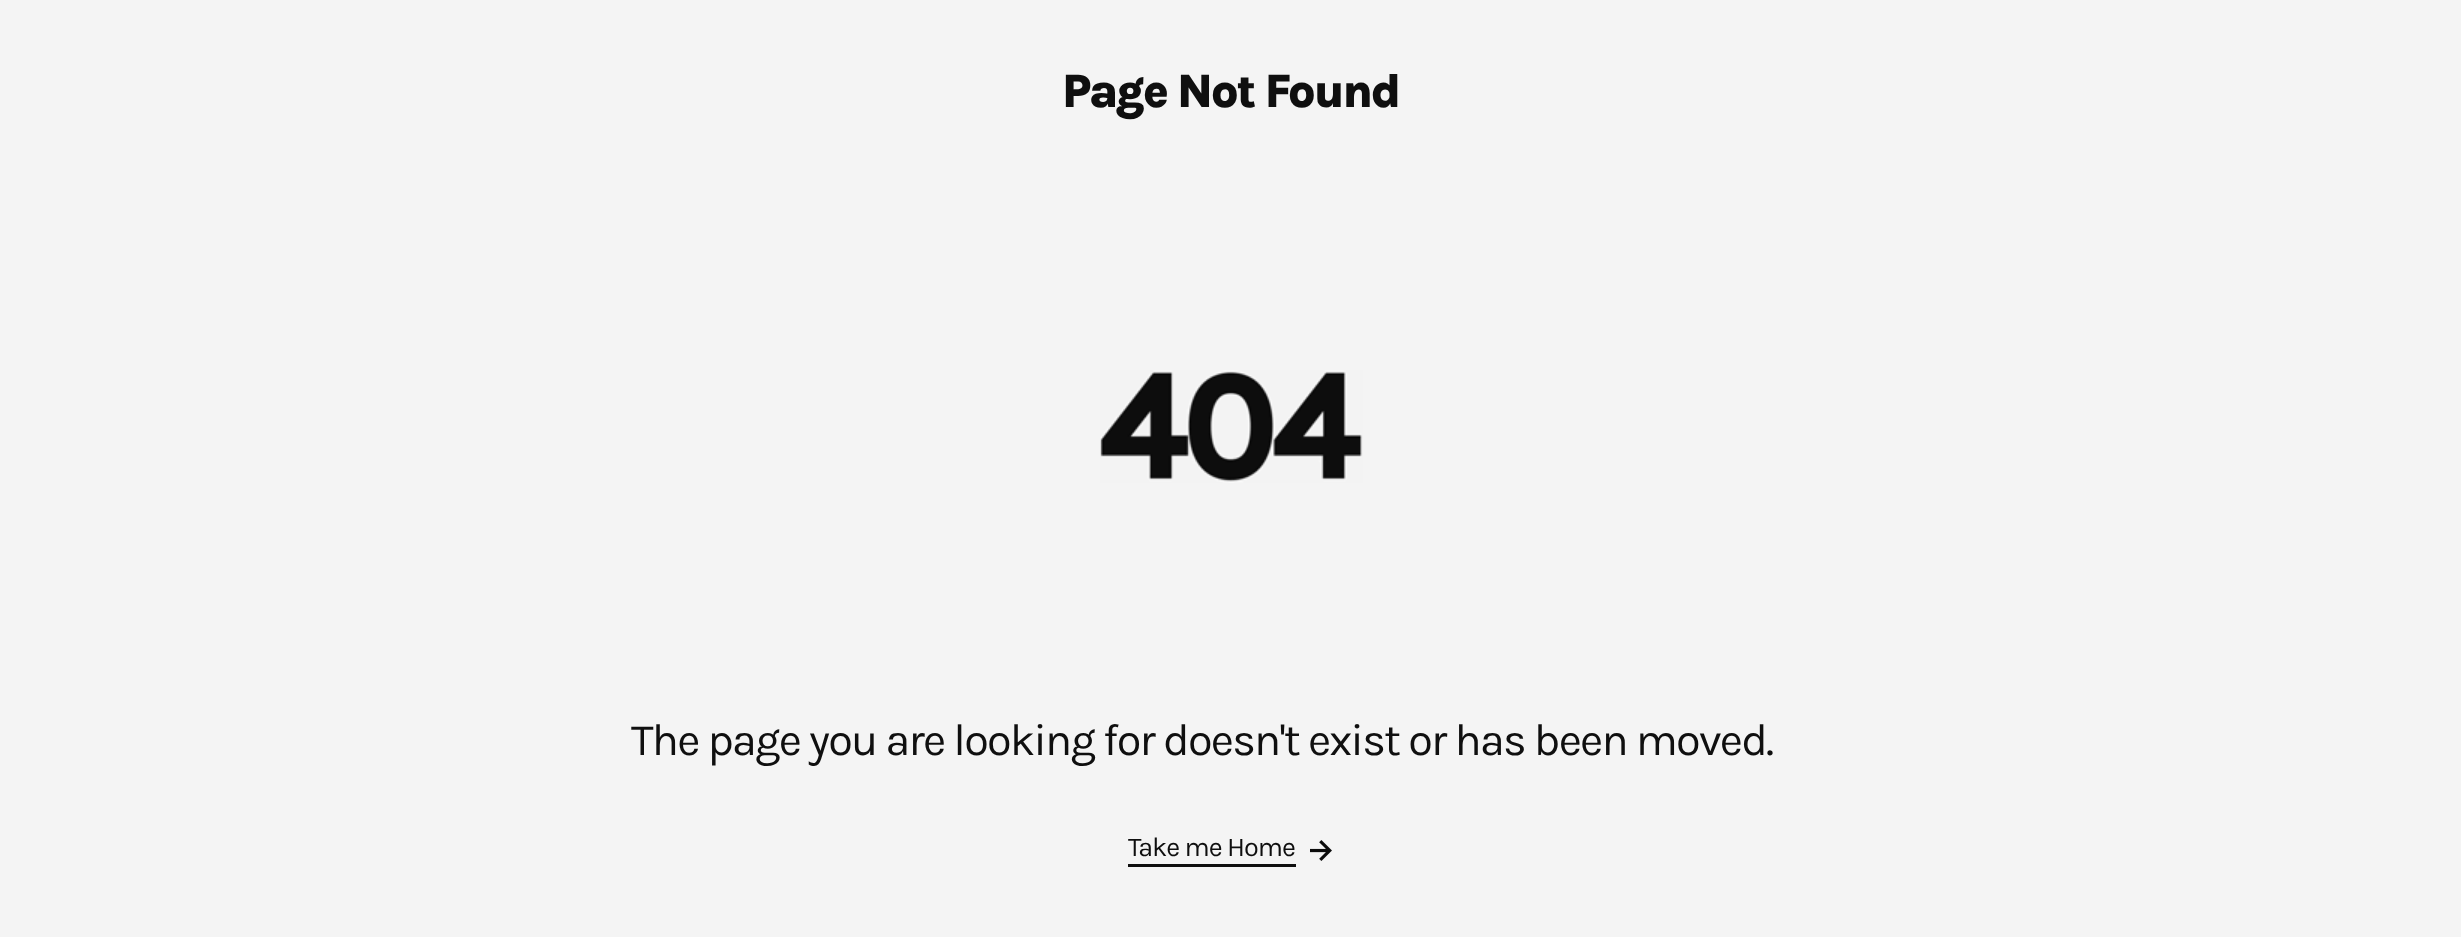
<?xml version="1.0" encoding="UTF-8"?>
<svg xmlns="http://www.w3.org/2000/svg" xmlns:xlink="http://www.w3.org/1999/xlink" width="2461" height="937">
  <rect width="100%" height="100%" fill="#f4f4f4" />
  <image x="1100" y="370" width="263" height="113" xlink:href="image1.png" />
  <rect x="1128" y="864" width="168" height="3" fill="#0f0f0f" />
  <image x="1310" y="840" width="22" height="21" xlink:href="image2.png" />
  <text x="1062" y="107" style="font-family: Karla; font-size: 48px; font-weight: 800; letter-spacing: -2.4px; fill: #0f0f0f">Page Not Found</text>
  <text x="631" y="755" style="font-family: Karla; font-size: 45px; letter-spacing: -1.75px; fill: #0f0f0f">The page you are looking for doesn't exist or has been moved.</text>
  <text x="1128" y="856" style="font-family: Karla; font-size: 27px; letter-spacing: -1px; fill: #0f0f0f">Take me Home</text>
</svg>
